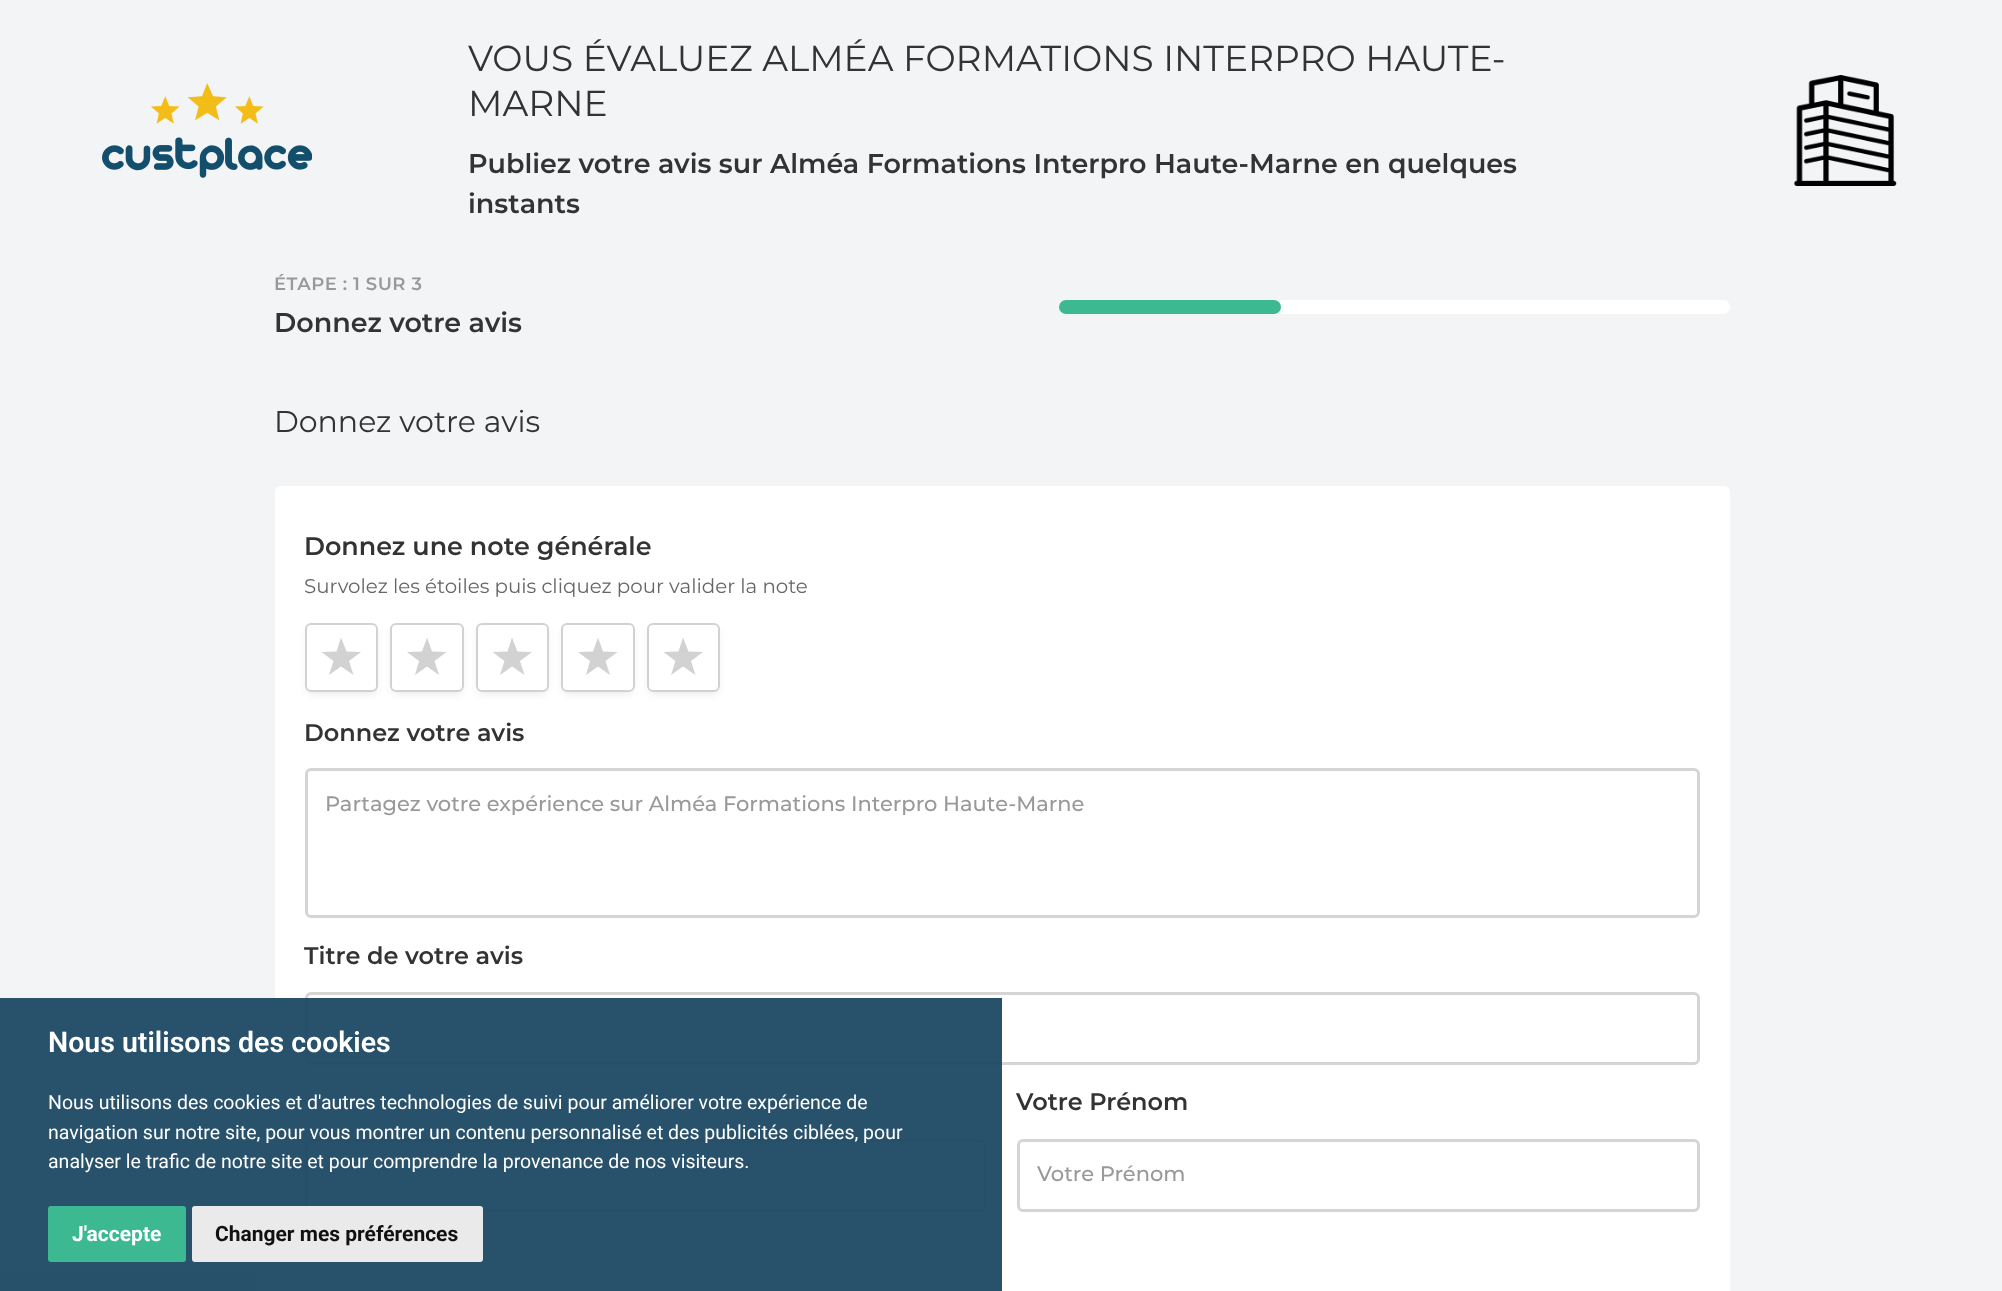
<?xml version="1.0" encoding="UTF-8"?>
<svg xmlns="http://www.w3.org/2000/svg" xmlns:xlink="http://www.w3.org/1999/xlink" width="2002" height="1291">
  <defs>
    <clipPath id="clip1"><path d="M 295 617 h 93 v 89 h -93 z m 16 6 h 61 c 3.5 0 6 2.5 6 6 v 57 c 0 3.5 -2.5 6 -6 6 h -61 c -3.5 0 -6 -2.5 -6 -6 v -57 c 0 -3.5 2.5 -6 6 -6 z" clip-rule="evenodd" /></clipPath>
    <clipPath id="clip2"><path d="M 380 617 h 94 v 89 h -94 z m 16 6 h 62 c 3.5 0 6 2.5 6 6 v 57 c 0 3.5 -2.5 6 -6 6 h -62 c -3.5 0 -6 -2.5 -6 -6 v -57 c 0 -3.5 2.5 -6 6 -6 z" clip-rule="evenodd" /></clipPath>
    <clipPath id="clip3"><path d="M 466 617 h 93 v 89 h -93 z m 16 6 h 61 c 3.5 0 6 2.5 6 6 v 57 c 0 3.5 -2.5 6 -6 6 h -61 c -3.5 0 -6 -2.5 -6 -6 v -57 c 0 -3.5 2.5 -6 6 -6 z" clip-rule="evenodd" /></clipPath>
    <clipPath id="clip4"><path d="M 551 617 h 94 v 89 h -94 z m 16 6 h 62 c 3.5 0 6 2.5 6 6 v 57 c 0 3.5 -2.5 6 -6 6 h -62 c -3.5 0 -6 -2.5 -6 -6 v -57 c 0 -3.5 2.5 -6 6 -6 z" clip-rule="evenodd" /></clipPath>
    <clipPath id="clip5"><path d="M 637 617 h 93 v 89 h -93 z m 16 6 h 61 c 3.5 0 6 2.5 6 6 v 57 c 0 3.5 -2.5 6 -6 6 h -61 c -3.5 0 -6 -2.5 -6 -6 v -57 c 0 -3.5 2.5 -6 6 -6 z" clip-rule="evenodd" /></clipPath>
  </defs>
  <rect width="100%" height="100%" fill="#f2f4f5" />
  <image x="102" y="83" width="210" height="95" xlink:href="image1.png" />
  <image x="1793" y="75" width="104" height="111" xlink:href="image2.png" />
  <rect x="1059" y="300" width="671" height="14" rx="7" fill="#ffffff" />
  <rect x="1059" y="300" width="222" height="14" rx="7" fill="#3db992" />
  <path d="M 281 486 h 1443 c 3.5 0 6 2.5 6 6 v 799 c 0 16.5 -13.5 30 -30 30 h -1395 c -16.5 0 -30 -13.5 -30 -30 v -799 c 0 -3.5 2.5 -6 6 -6 z" fill="#ffffff" />
  <g clip-path="url(#clip1)">
    <rect x="308" y="630" width="67" height="63" rx="3" fill="#000000" fill-opacity="0.1" filter="blur(4px)" />
  </g>
  <rect x="306" y="624" width="71" height="67" rx="5" fill="none" stroke="#d2d2d2" stroke-width="2" />
  <path d="M 341 666.5 l -12 8.5 l 4.5 -14 l -12 -9 l 15 -0.5 l 4.5 -14 l 5.5 14 l 14.5 0.5 l -12 9 l 4.5 14 z" fill="#d2d2d2" />
  <g clip-path="url(#clip2)">
    <rect x="393" y="630" width="68" height="63" rx="3" fill="#000000" fill-opacity="0.1" filter="blur(4px)" />
  </g>
  <rect x="391" y="624" width="72" height="67" rx="5" fill="none" stroke="#d2d2d2" stroke-width="2" />
  <path d="M 427 666.5 l -12 8.5 l 4 -14 l -12 -9 l 15 -0.5 l 5 -14 l 5 14 l 14.5 0.5 l -12 9 l 4.5 14 z" fill="#d2d2d2" />
  <g clip-path="url(#clip3)">
    <rect x="479" y="630" width="67" height="63" rx="3" fill="#000000" fill-opacity="0.1" filter="blur(4px)" />
  </g>
  <rect x="477" y="624" width="71" height="67" rx="5" fill="none" stroke="#d2d2d2" stroke-width="2" />
  <path d="M 512 666.5 l -12 8.5 l 4.5 -14 l -12 -9 l 15 -0.5 l 4.5 -14 l 5.5 14 l 14.5 0.5 l -12 9 l 4.5 14 z" fill="#d2d2d2" />
  <g clip-path="url(#clip4)">
    <rect x="564" y="630" width="68" height="63" rx="3" fill="#000000" fill-opacity="0.1" filter="blur(4px)" />
  </g>
  <rect x="562" y="624" width="72" height="67" rx="5" fill="none" stroke="#d2d2d2" stroke-width="2" />
  <path d="M 598 666.5 l -12 8.5 l 4 -14 l -12 -9 l 15 -0.5 l 5 -14 l 5 14 l 14.5 0.5 l -12 9 l 4.5 14 z" fill="#d2d2d2" />
  <g clip-path="url(#clip5)">
    <rect x="650" y="630" width="67" height="63" rx="3" fill="#000000" fill-opacity="0.1" filter="blur(4px)" />
  </g>
  <rect x="648" y="624" width="71" height="67" rx="5" fill="none" stroke="#d2d2d2" stroke-width="2" />
  <path d="M 683 666.5 l -12 8.5 l 4.5 -14 l -12 -9 l 15 -0.5 l 4.5 -14 l 5.5 14 l 14.5 0.5 l -12 9 l 4.5 14 z" fill="#d2d2d2" />
  <rect x="306.5" y="769.5" width="1392" height="147" rx="4.5" fill="none" stroke="#d5d5d5" stroke-width="3" />
  <rect x="306.5" y="993.5" width="1392" height="70" rx="4.5" fill="none" stroke="#d5d5d5" stroke-width="3" />
  <rect x="306.5" y="1140.5" width="679" height="70" rx="4.5" fill="none" stroke="#d5d5d5" stroke-width="3" />
  <rect x="1018.5" y="1140.5" width="680" height="70" rx="4.5" fill="none" stroke="#d5d5d5" stroke-width="3" />
  <rect y="998" width="1002" height="293" fill="#1c4863" fill-opacity="0.95" />
  <rect x="48" y="1206" width="138" height="56" rx="3" fill="#3db992" />
  <rect x="192" y="1206" width="291" height="56" rx="3" fill="#eaeaea" />
  <text x="468" y="71" style="font-family: Montserrat; font-size: 36px; font-weight: 100; fill: #333333">VOUS ÉVALUEZ ALMÉA FORMATIONS INTERPRO HAUTE-</text>
  <text x="468" y="116" style="font-family: Montserrat; font-size: 36px; font-weight: 100; fill: #333333">MARNE</text>
  <text x="468" y="173" style="font-family: 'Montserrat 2'; font-size: 27px; font-weight: 100; fill: #333333">Publiez votre avis sur Alméa Formations Interpro Haute-Marne en quelques</text>
  <text x="468" y="213" style="font-family: 'Montserrat 2'; font-size: 27px; font-weight: 100; fill: #333333">instants</text>
  <text x="274" y="290" style="font-family: 'Montserrat 2'; font-size: 18px; font-weight: 100; letter-spacing: 0.5px; fill: #999999">ÉTAPE : 1 SUR 3</text>
  <text x="274" y="332" style="font-family: 'Montserrat 2'; font-size: 27px; font-weight: 100; fill: #333333">Donnez votre avis</text>
  <text x="274" y="432" style="font-family: Montserrat; font-size: 30px; font-weight: 100; fill: #333333">Donnez votre avis</text>
  <text x="304" y="555" style="font-family: 'Montserrat 2'; font-size: 25.4px; font-weight: 100; fill: #333333">Donnez une note générale</text>
  <text x="304" y="593" style="font-family: Montserrat; font-size: 19.8px; font-weight: 100; fill: #666666">Survolez les étoiles puis cliquez pour valider la note</text>
  <text x="304" y="741" style="font-family: 'Montserrat 2'; font-size: 24px; font-weight: 100; fill: #333333">Donnez votre avis</text>
  <text x="325" y="811" style="font-family: 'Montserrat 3'; font-size: 21px; font-weight: 100; fill: #999999">Partagez votre expérience sur Alméa Formations Interpro Haute-Marne</text>
  <text x="304" y="964" style="font-family: 'Montserrat 2'; font-size: 24px; font-weight: 100; fill: #333333">Titre de votre avis</text>
  <text x="1016" y="1110" style="font-family: 'Montserrat 2'; font-size: 24px; font-weight: 100; fill: #333333">Votre Prénom</text>
  <text x="1037" y="1181" style="font-family: 'Montserrat 3'; font-size: 21px; font-weight: 100; fill: #999999">Votre Prénom</text>
  <text x="48" y="1052" style="font-family: Roboto; font-size: 28.5px; font-weight: 600; fill: #ffffff">Nous utilisons des cookies</text>
  <text x="48" y="1109" style="font-family: Roboto; font-size: 19.5px; fill: #ffffff">Nous utilisons des cookies et d'autres technologies de suivi pour améliorer votre expérience de</text>
  <text x="48" y="1139" style="font-family: Roboto; font-size: 19.5px; fill: #ffffff">navigation sur notre site, pour vous montrer un contenu personnalisé et des publicités ciblées, pour</text>
  <text x="48" y="1168" style="font-family: Roboto; font-size: 19.5px; fill: #ffffff">analyser le trafic de notre site et pour comprendre la provenance de nos visiteurs.</text>
  <text x="72" y="1241" style="font-family: Roboto; font-size: 21px; font-weight: bold; fill: #ffffff">J'accepte</text>
  <text x="215" y="1241" style="font-family: Roboto; font-size: 21px; font-weight: bold; fill: #111111">Changer mes préférences</text>
</svg>
